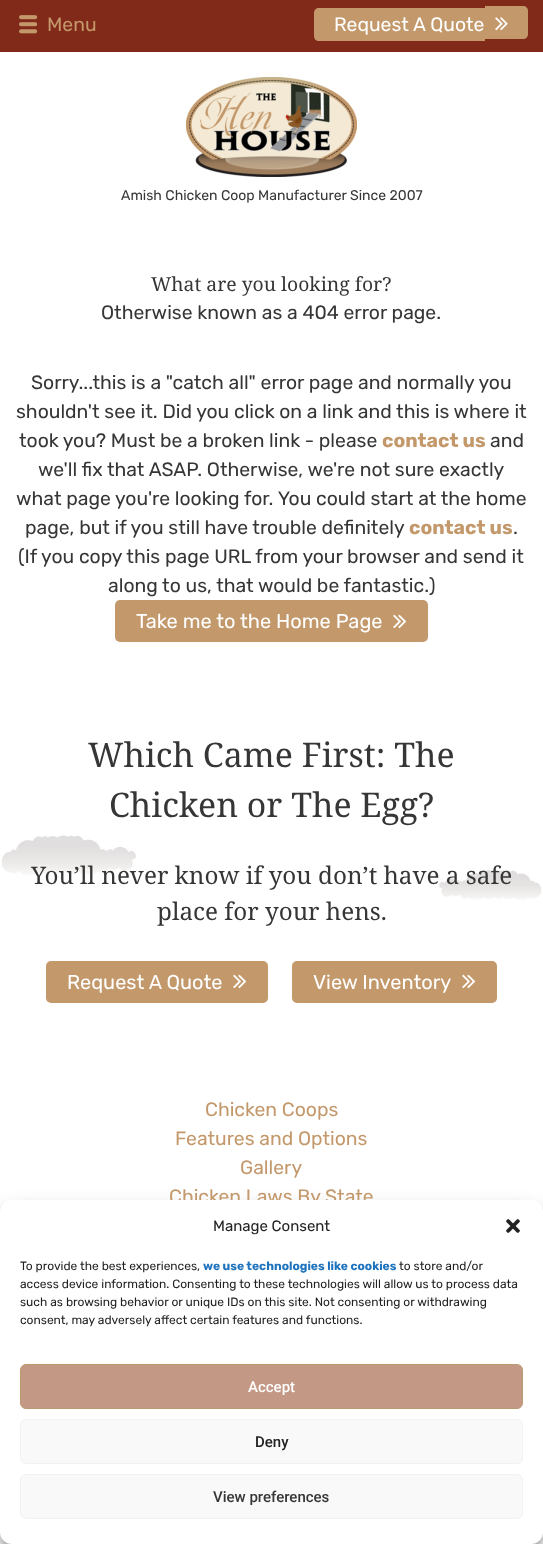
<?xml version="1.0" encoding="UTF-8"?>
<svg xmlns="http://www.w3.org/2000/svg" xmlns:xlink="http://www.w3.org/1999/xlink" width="543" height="1544">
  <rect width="100%" height="100%" fill="#ffffff" />
  <rect width="543" height="52" fill="#822a1a" />
  <image x="19" y="15" width="19" height="19" xlink:href="image1.png" />
  <path d="M 319 8 h 166 v 33 h -166 c -3 0 -5 -2 -5 -5 v -23 c 0 -3 2 -5 5 -5 z" fill="#c3986b" />
  <path d="M 485 6 h 38 c 3 0 5 2 5 5 v 23 c 0 3 -2 5 -5 5 h -38 z" fill="#c3986b" />
  <image x="495" y="17" width="13" height="14" xlink:href="image2.png" />
  <image x="186" y="77" width="171" height="100" xlink:href="image3.png" />
  <rect x="115" y="600" width="313" height="42" rx="5" fill="#c3986b" />
  <image x="393" y="614" width="14" height="15" xlink:href="image4.png" />
  <image x="2" y="835" width="540" height="65" xlink:href="image5.png" />
  <rect x="46" y="961" width="222" height="42" rx="5" fill="#c3986b" />
  <image x="233" y="974" width="14" height="15" xlink:href="image4.png" />
  <rect x="292" y="961" width="205" height="42" rx="5" fill="#c3986b" />
  <image x="462" y="974" width="14" height="15" xlink:href="image4.png" />
  <rect y="1206" width="543" height="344" rx="12" fill="#000000" fill-opacity="0.23" filter="blur(3px)" />
  <rect y="1210" width="543" height="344" rx="12" fill="#000000" fill-opacity="0.19" filter="blur(10px)" />
  <text x="47" y="31" style="font-family: Rubik; font-size: 19.35px; fill: #c3986b">Menu</text>
  <text x="334" y="31" style="font-family: Rubik; font-size: 19.35px; fill: #ffffff">Request A Quote</text>
  <text x="121" y="200" style="font-family: Rubik; font-size: 14px; fill: #363636">Amish Chicken Coop Manufacturer Since 2007</text>
  <text x="151" y="291" style="font-family: Noto Serif; font-size: 19.35px; fill: #363636">What are you looking for?</text>
  <text x="101" y="319" style="font-family: Rubik; font-size: 19.35px; fill: #363636">Otherwise known as a 404 error page.</text>
  <text x="31" y="389" style="font-family: Rubik; font-size: 19.35px; fill: #363636">Sorry...this is a "catch all" error page and normally you</text>
  <text x="16" y="418" style="font-family: Rubik; font-size: 19.35px; fill: #363636">shouldn't see it. Did you click on a link and this is where it</text>
  <text x="19" y="447" style="font-family: Rubik; font-size: 19.35px; fill: #363636">took you? Must be a broken link - please</text>
  <text x="382" y="447" style="font-family: Rubik; font-size: 19.35px; font-weight: bold; fill: #c3986b">contact us</text>
  <text x="490" y="447" style="font-family: Rubik; font-size: 19.35px; fill: #363636">and</text>
  <text x="38" y="476" style="font-family: Rubik; font-size: 19.35px; fill: #363636">we'll fix that ASAP. Otherwise, we're not sure exactly</text>
  <text x="16" y="505" style="font-family: Rubik; font-size: 19.35px; fill: #363636">what page you're looking for. You could start at the home</text>
  <text x="25" y="534" style="font-family: Rubik; font-size: 19.35px; fill: #363636">page, but if you still have trouble definitely</text>
  <text x="409" y="534" style="font-family: Rubik; font-size: 19.35px; font-weight: bold; fill: #c3986b">contact us</text>
  <text x="513" y="534" style="font-family: Rubik; font-size: 19.35px; fill: #363636">.</text>
  <text x="18" y="563" style="font-family: Rubik; font-size: 19.35px; fill: #363636">(If you copy this page URL from your browser and send it</text>
  <text x="108" y="592" style="font-family: Rubik; font-size: 19.35px; fill: #363636">along to us, that would be fantastic.)</text>
  <text x="136" y="628" style="font-family: Rubik; font-size: 20px; fill: #ffffff">Take me to the Home Page</text>
  <text x="88" y="767" style="font-family: Noto Serif; font-size: 33.9px; fill: #363636">Which Came First: The</text>
  <text x="109" y="817" style="font-family: Noto Serif; font-size: 33.9px; fill: #363636">Chicken or The Egg?</text>
  <text x="31" y="884" style="font-family: Noto Serif; font-size: 24.25px; fill: #363636">You’ll never know if you don’t have a safe</text>
  <text x="157" y="920" style="font-family: Noto Serif; font-size: 24.25px; fill: #363636">place for your hens.</text>
  <text x="67" y="989" style="font-family: Rubik; font-size: 20px; fill: #ffffff">Request A Quote</text>
  <text x="313" y="989" style="font-family: Rubik; font-size: 20px; fill: #ffffff">View Inventory</text>
  <text x="205" y="1116" style="font-family: Rubik; font-size: 19.35px; fill: #c3986b">Chicken Coops</text>
  <text x="175" y="1145" style="font-family: Rubik; font-size: 19.35px; fill: #c3986b">Features and Options</text>
  <text x="240" y="1174" style="font-family: Rubik; font-size: 19.35px; fill: #c3986b">Gallery</text>
  <text x="169" y="1203" style="font-family: Rubik; font-size: 19.35px; fill: #c3986b">Chicken Laws By State</text>
  <rect y="1200" width="543" height="344" rx="12" fill="#ffffff" />
  <text x="213" y="1231" style="font-family: Rubik; font-size: 15px; fill: #222222">Manage Consent</text>
  <image x="506" y="1219" width="14" height="14" xlink:href="image6.png" />
  <text x="20" y="1270" style="font-family: Rubik; font-size: 12px; fill: #222222">To provide the best experiences,</text>
  <text x="203" y="1270" style="font-family: Rubik; font-size: 12px; font-weight: bold; fill: #1e73be">we use technologies like cookies</text>
  <text x="399" y="1270" style="font-family: Rubik; font-size: 12px; fill: #222222">to store and/or</text>
  <text x="20" y="1288" style="font-family: Rubik; font-size: 12px; fill: #222222">access device information. Consenting to these technologies will allow us to process data</text>
  <text x="20" y="1306" style="font-family: Rubik; font-size: 12px; fill: #222222">such as browsing behavior or unique IDs on this site. Not consenting or withdrawing</text>
  <text x="20" y="1324" style="font-family: Rubik; font-size: 12px; fill: #222222">consent, may adversely affect certain features and functions.</text>
  <rect x="20.5" y="1364.5" width="502" height="44" rx="5.5" fill="#c39986" stroke="#bc9971" />
  <text x="248" y="1392" style="font-family: Roboto; font-size: 15px; font-weight: 500; fill: #ffffff">Accept</text>
  <rect x="20.5" y="1419.5" width="502" height="44" rx="5.5" fill="#f9f9f9" stroke="#f2f2f2" />
  <text x="255" y="1447" style="font-family: Roboto; font-size: 15px; font-weight: 500; fill: #222222">Deny</text>
  <rect x="20.5" y="1474.5" width="502" height="44" rx="5.5" fill="#f9f9f9" stroke="#f2f2f2" />
  <text x="213" y="1502" style="font-family: Roboto; font-size: 15px; font-weight: 500; fill: #363636">View preferences</text>
</svg>
